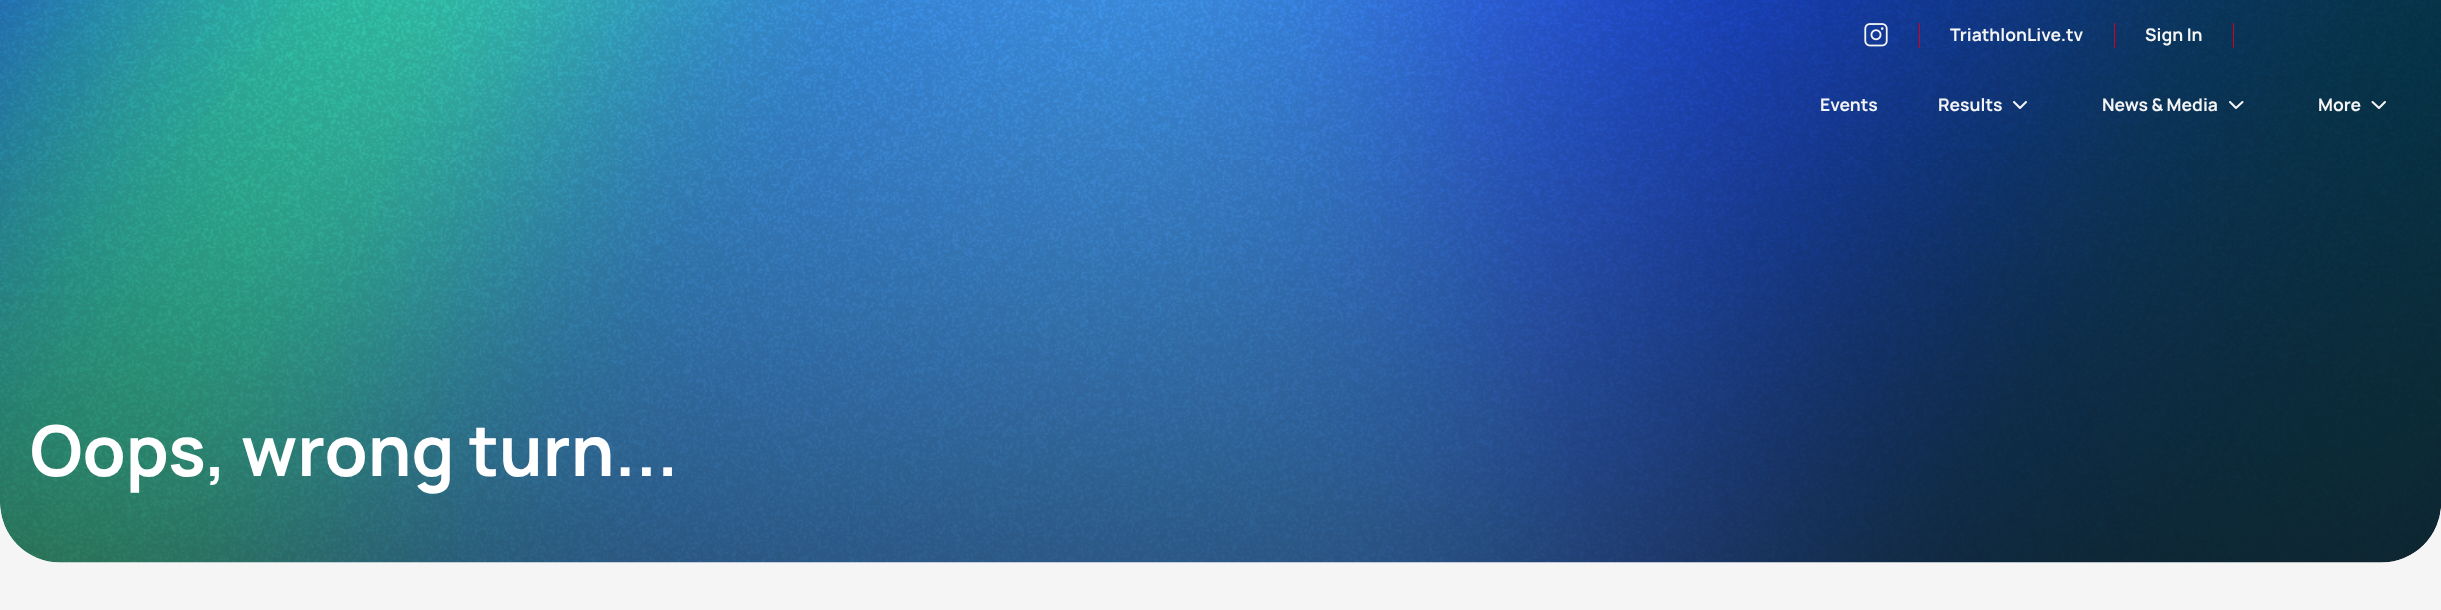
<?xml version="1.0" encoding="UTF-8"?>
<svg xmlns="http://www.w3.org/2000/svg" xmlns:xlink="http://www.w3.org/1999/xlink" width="2441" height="610">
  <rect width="100%" height="100%" fill="#f5f5f5" />
  <image x="0" y="0" width="2441" height="563" xlink:href="image2.png" />
  <image x="1864" y="23" width="24" height="24" xlink:href="image1.png" />
  <rect x="1919" y="23" width="1" height="25" fill="#d6001c" />
  <rect x="2114" y="23" width="1" height="25" fill="#d6001c" />
  <rect x="2233" y="23" width="1" height="25" fill="#d6001c" />
  <path d="M 2014 102 l 6 6 l 6 -6" fill="none" stroke="#f5f5f5" stroke-width="2.1" stroke-linecap="round" stroke-linejoin="round" />
  <path d="M 2230 102 l 6 6 l 6.5 -6" fill="none" stroke="#f5f5f5" stroke-width="2.1" stroke-linecap="round" stroke-linejoin="round" />
  <path d="M 2372.5 102 l 6.5 6 l 6 -6" fill="none" stroke="#f5f5f5" stroke-width="2.1" stroke-linecap="round" stroke-linejoin="round" />
  <text x="1950" y="41" style="font-family: Manrope; font-size: 17.5px; font-weight: bold; fill: #f5f5f5">TriathlonLive.tv</text>
  <text x="2145" y="41" style="font-family: Manrope; font-size: 17.5px; font-weight: bold; fill: #f5f5f5">Sign In</text>
  <text x="1820" y="111" style="font-family: Manrope; font-size: 17.5px; font-weight: bold; fill: #f5f5f5">Events</text>
  <text x="1938" y="111" style="font-family: Manrope; font-size: 17.5px; font-weight: bold; fill: #f5f5f5">Results</text>
  <text x="2102" y="111" style="font-family: Manrope; font-size: 17.5px; font-weight: bold; fill: #f5f5f5">News &amp; Media</text>
  <text x="2318" y="111" style="font-family: Manrope; font-size: 17.5px; font-weight: bold; fill: #f5f5f5">More</text>
  <text x="30" y="476" style="font-family: Manrope; font-size: 70px; font-weight: bold; fill: #ffffff">Oops, wrong turn...</text>
</svg>
